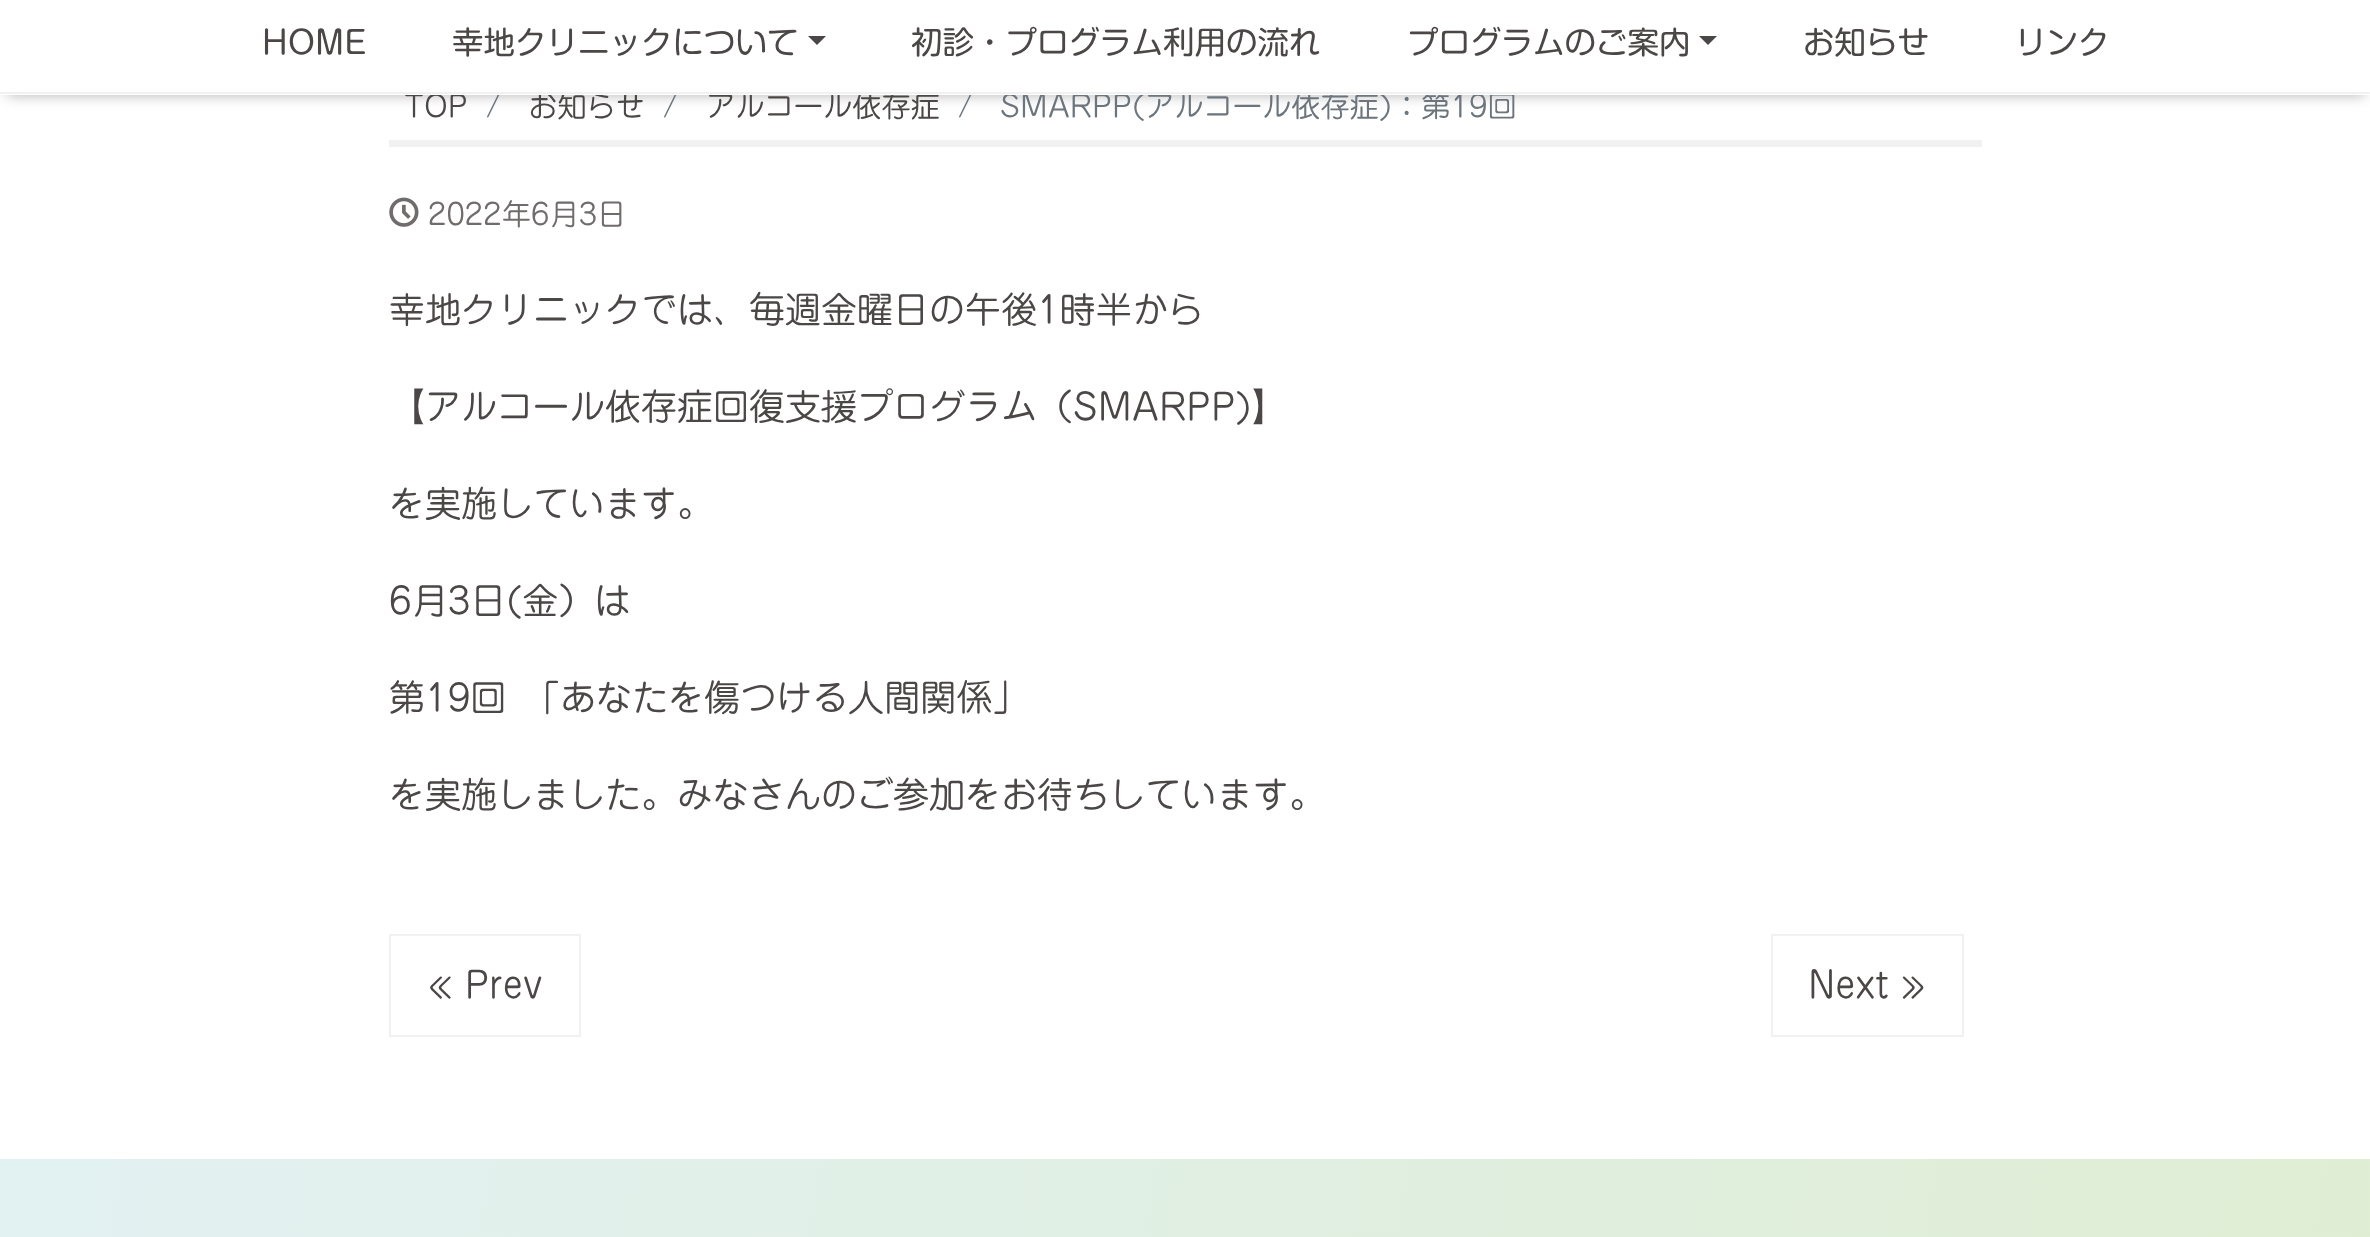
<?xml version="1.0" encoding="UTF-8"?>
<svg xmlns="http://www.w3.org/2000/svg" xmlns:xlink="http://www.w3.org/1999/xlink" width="2370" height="1237">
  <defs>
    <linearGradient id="g1" gradientUnits="userSpaceOnUse" x1="0" y1="1159" x2="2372" y2="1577"><stop offset="0" stop-color="#e2f1f2" /><stop offset="1" stop-color="#dfedd3" /></linearGradient>
  </defs>
  <rect width="100%" height="100%" fill="#ffffff" />
  <rect x="7" y="14" width="2358" height="81" fill="#000000" fill-opacity="0.3" filter="blur(7px)" />
  <rect x="389" y="140" width="1593" height="7" fill="#f1f1f1" />
  <image x="389" y="197" width="30" height="30" xlink:href="image1.png" />
  <rect x="390" y="935" width="190" height="101" fill="none" stroke="#f1f1f1" stroke-width="2" />
  <rect x="1772" y="935" width="191" height="101" fill="none" stroke="#f1f1f1" stroke-width="2" />
  <rect y="1159" width="2370" height="78" fill="url(#g1)" />
  <text x="404" y="117" style="font-family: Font; font-size: 29.25px; fill: #4c4747">TOP</text>
  <text x="486" y="117" style="font-family: Font; font-size: 29.25px; fill: #6c757d">/</text>
  <text x="528" y="117" style="font-family: Font; font-size: 29.25px; fill: #4c4747">お知らせ</text>
  <text x="663" y="117" style="font-family: Font; font-size: 29.25px; fill: #6c757d">/</text>
  <text x="706" y="117" style="font-family: Font; font-size: 29.25px; fill: #4c4747">アルコール依存症</text>
  <text x="958" y="117" style="font-family: Font; font-size: 29.25px; fill: #6c757d">/</text>
  <text x="1000" y="117" style="font-family: Font; font-size: 29.25px; fill: #6c757d">SMARPP(アルコール依存症)：第19回</text>
  <rect y="1" width="2370" height="94" fill="#ffffff" />
  <path d="M 1699 36 h 18 l -9 9 z" fill="#4c4747" />
  <text x="1407" y="54" style="font-family: 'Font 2'; font-size: 31.5px; fill: #4c4747">プログラムのご案内</text>
  <path d="M 808 36 h 18 l -9 9 z" fill="#4c4747" />
  <text x="452" y="54" style="font-family: 'Font 2'; font-size: 31.5px; fill: #4c4747">幸地クリニックについて</text>
  <text x="2015" y="54" style="font-family: 'Font 2'; font-size: 31.5px; fill: #4c4747">リンク</text>
  <text x="1803" y="54" style="font-family: 'Font 2'; font-size: 31.5px; fill: #4c4747">お知らせ</text>
  <text x="911" y="54" style="font-family: 'Font 2'; font-size: 31.5px; fill: #4c4747">初診・プログラム利用の流れ</text>
  <text x="262" y="54" style="font-family: 'Font 2'; font-size: 31.5px; fill: #4c4747">HOME</text>
  <rect y="92" width="2370" height="2" fill="#f1f1f1" />
  <text x="428" y="225" style="font-family: Font; font-size: 29.25px; fill: #706c6c">2022年6月3日</text>
  <text x="389" y="323" style="font-family: Font; font-size: 36px; fill: #4c4747">幸地クリニックでは、毎週金曜日の午後1時半から</text>
  <text x="389" y="420" style="font-family: Font; font-size: 36px; fill: #4c4747">【アルコール依存症回復支援プログラム（SMARPP)】</text>
  <text x="389" y="517" style="font-family: Font; font-size: 36px; fill: #4c4747">を実施しています。</text>
  <text x="389" y="614" style="font-family: Font; font-size: 36px; fill: #4c4747">6月3日(金）は</text>
  <text x="389" y="711" style="font-family: Font; font-size: 36px; fill: #4c4747">第19回　「あなたを傷つける人間関係」</text>
  <text x="389" y="808" style="font-family: Font; font-size: 36px; fill: #4c4747">を実施しました。みなさんのご参加をお待ちしています。</text>
  <text x="428" y="998" style="font-family: Font; font-size: 36px; fill: #4c4747">« Prev</text>
  <text x="1808" y="998" style="font-family: Font; font-size: 36px; fill: #4c4747">Next »</text>
</svg>
